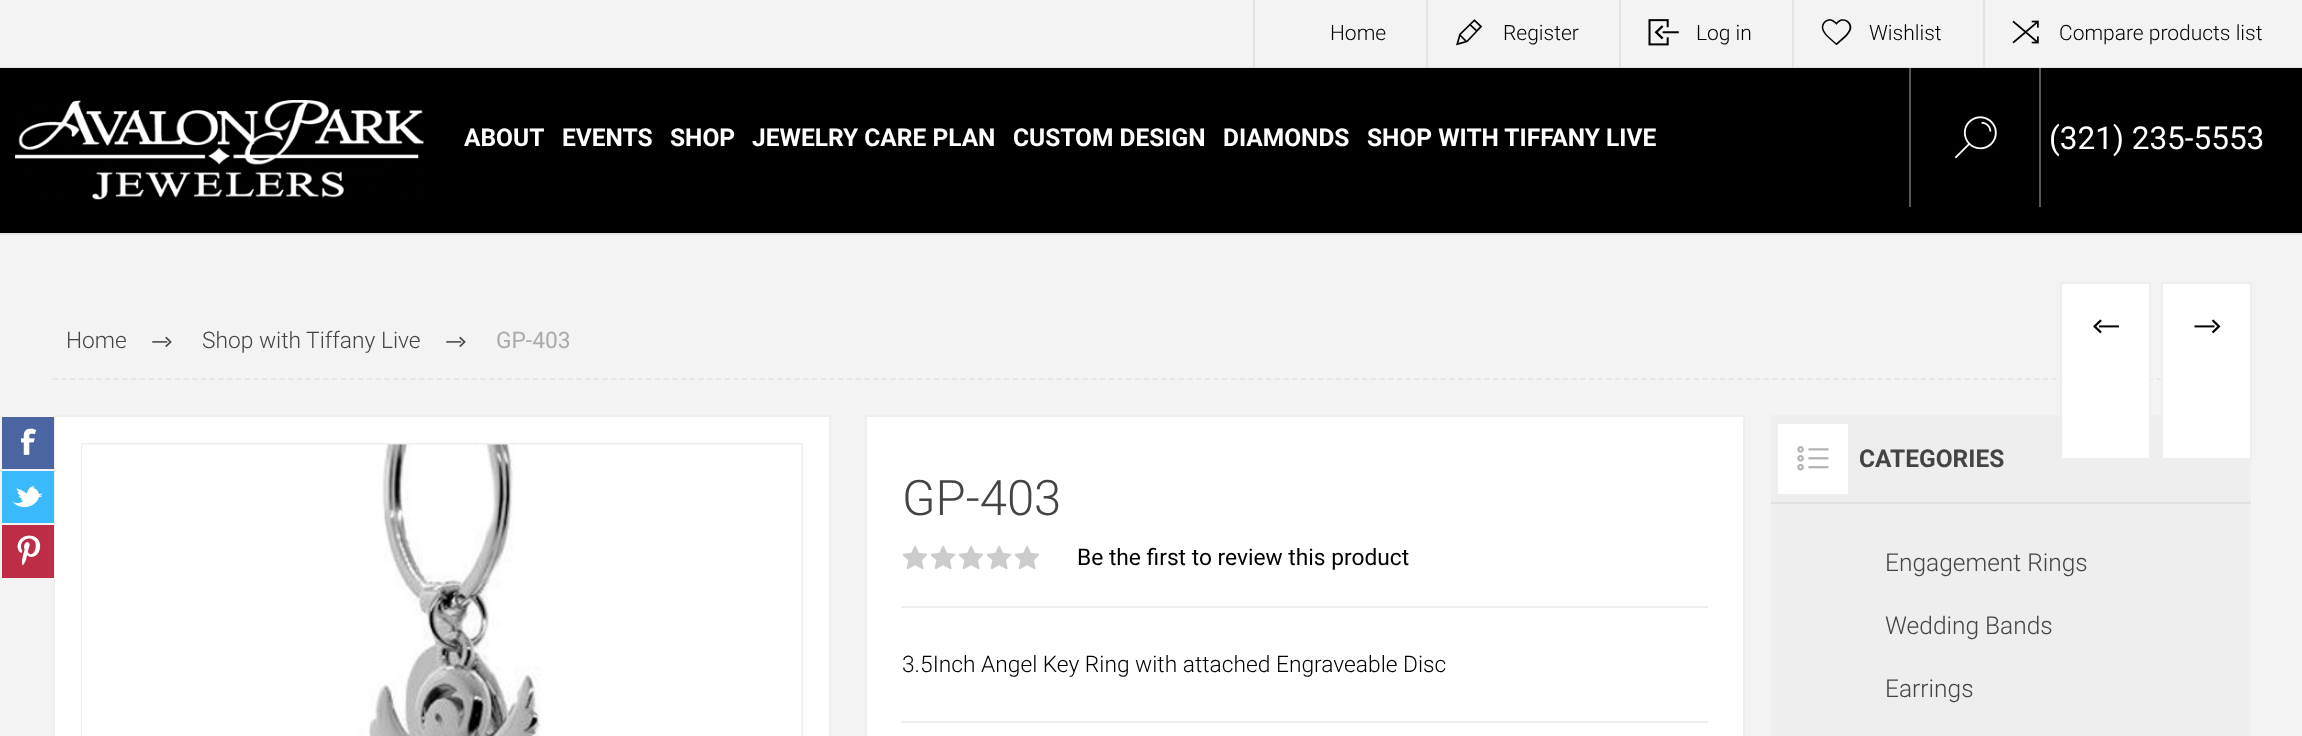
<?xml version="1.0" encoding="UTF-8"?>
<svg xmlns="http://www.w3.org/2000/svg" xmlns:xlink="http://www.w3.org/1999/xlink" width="2302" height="736">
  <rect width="100%" height="100%" fill="#f3f3f3" />
  <rect y="67" width="2302" height="1" fill="#e3e3e3" />
  <rect x="1253" width="2" height="67" fill="#e3e3e3" />
  <rect x="1426" width="2" height="67" fill="#e3e3e3" />
  <image x="1456" y="19" width="27" height="27" xlink:href="image1.png" />
  <rect x="1619" width="2" height="67" fill="#e3e3e3" />
  <image x="1648" y="19" width="31" height="27" xlink:href="image2.png" />
  <rect x="1792" width="2" height="67" fill="#e3e3e3" />
  <image x="1821" y="19" width="31" height="27" xlink:href="image3.png" />
  <rect x="1983" width="2" height="67" fill="#e3e3e3" />
  <image x="2012" y="20" width="27" height="24" xlink:href="image4.png" />
  <rect y="68" width="2302" height="165" fill="#000000" />
  <rect y="233" width="2302" height="2" fill="#e3e3e3" />
  <image x="15" y="100" width="409" height="100" xlink:href="image5.png" />
  <rect x="2039" y="68" width="2" height="139" fill="#575757" />
  <rect x="1909" y="68" width="2" height="139" fill="#575757" />
  <image x="1954" y="116" width="43" height="43" xlink:href="image6.png" />
  <path d="M 52.5 379 h 2198" fill="none" stroke="#e6e6e6" stroke-width="1.8" stroke-dasharray="5.25 3.48" />
  <image x="152" y="336" width="20" height="12" xlink:href="image7.png" />
  <image x="446" y="336" width="20" height="12" xlink:href="image7.png" />
  <rect x="1771" y="415" width="480" height="321" fill="#eeeeee" />
  <rect x="2061" y="283" width="89" height="176" fill="#ffffff" stroke="#eeeeee" stroke-width="2" />
  <image x="2093" y="319" width="26" height="15" xlink:href="image8.png" />
  <rect x="2162" y="283" width="89" height="176" fill="#ffffff" stroke="#eeeeee" stroke-width="2" />
  <image x="2194" y="319" width="27" height="15" xlink:href="image9.png" />
  <rect x="54" y="416" width="776" height="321" fill="#ffffff" stroke="#eeeeee" stroke-width="2" />
  <rect x="2" y="417" width="52" height="52" fill="#4a65a2" />
  <image x="21" y="428" width="16" height="27" xlink:href="image10.png" />
  <rect x="2" y="471" width="52" height="52" fill="#3abafd" />
  <image x="12" y="486" width="31" height="22" xlink:href="image11.png" />
  <rect x="2" y="525" width="52" height="53" fill="#bd2d45" />
  <image x="17" y="535" width="24" height="31" xlink:href="image12.png" />
  <rect x="82" y="444" width="720" height="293" fill="none" stroke="#eeeeee" stroke-width="2" />
  <image x="82" y="444" width="720" height="292" xlink:href="image13.png" />
  <rect x="866" y="416" width="878" height="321" fill="#ffffff" stroke="#eeeeee" stroke-width="2" />
  <rect x="901" y="606" width="807" height="2" fill="#eeeeee" />
  <image x="902" y="545" width="138" height="25" xlink:href="image14.png" />
  <rect x="901" y="721" width="807" height="2" fill="#eeeeee" />
  <rect x="1771" y="502" width="480" height="2" fill="#e1e1e1" />
  <rect x="1778" y="424" width="70" height="70" fill="#ffffff" />
  <image x="1797" y="446" width="32" height="25" xlink:href="image15.png" />
  <text x="1330" y="40" style="font-family: Roboto; font-size: 21px; font-weight: 300; fill: #000000">Home</text>
  <text x="1503" y="40" style="font-family: Roboto; font-size: 21px; font-weight: 300; fill: #000000">Register</text>
  <text x="1696" y="40" style="font-family: Roboto; font-size: 21px; font-weight: 300; fill: #000000">Log in</text>
  <text x="1869" y="40" style="font-family: Roboto; font-size: 21px; font-weight: 300; fill: #000000">Wishlist</text>
  <text x="2059" y="40" style="font-family: Roboto; font-size: 21px; font-weight: 300; fill: #000000">Compare products list</text>
  <text x="464" y="146" style="font-family: Roboto; font-size: 24.5px; font-weight: bold; fill: #ffffff">ABOUT</text>
  <text x="562" y="146" style="font-family: Roboto; font-size: 24.5px; font-weight: bold; fill: #ffffff">EVENTS</text>
  <text x="670" y="146" style="font-family: Roboto; font-size: 24.5px; font-weight: bold; fill: #ffffff">SHOP</text>
  <text x="752" y="146" style="font-family: Roboto; font-size: 24.5px; font-weight: bold; fill: #ffffff">JEWELRY CARE PLAN</text>
  <text x="1013" y="146" style="font-family: Roboto; font-size: 24.5px; font-weight: bold; fill: #ffffff">CUSTOM DESIGN</text>
  <text x="1223" y="146" style="font-family: Roboto; font-size: 24.5px; font-weight: bold; fill: #ffffff">DIAMONDS</text>
  <text x="1367" y="146" style="font-family: Roboto; font-size: 24.5px; font-weight: bold; fill: #ffffff">SHOP WITH TIFFANY LIVE</text>
  <text x="2049" y="149" style="font-family: Roboto; font-size: 31.5px; fill: #ffffff">(321) 235-5553</text>
  <text x="66" y="348" style="font-family: Roboto; font-size: 22.75px; font-weight: 300; fill: #444444">Home</text>
  <text x="202" y="348" style="font-family: Roboto; font-size: 22.75px; font-weight: 300; fill: #444444">Shop with Tiffany Live</text>
  <text x="496" y="348" style="font-family: Roboto; font-size: 22.75px; fill: #aaaaaa">GP-403</text>
  <text x="902" y="515" style="font-family: Roboto; font-size: 49px; font-weight: 300; fill: #444444">GP-403</text>
  <text x="1077" y="565" style="font-family: Roboto; font-size: 22.75px; fill: #000000">Be the first to review this product</text>
  <text x="902" y="672" style="font-family: Roboto; font-size: 22.75px; font-weight: 300; fill: #000000">3.5Inch Angel Key Ring with attached Engraveable Disc</text>
  <text x="1859" y="467" style="font-family: Roboto; font-size: 24.5px; font-weight: bold; fill: #444444">CATEGORIES</text>
  <text x="1885" y="571" style="font-family: Roboto; font-size: 24.5px; font-weight: 300; fill: #444444">Engagement Rings</text>
  <text x="1885" y="634" style="font-family: Roboto; font-size: 24.5px; font-weight: 300; fill: #444444">Wedding Bands</text>
  <text x="1885" y="697" style="font-family: Roboto; font-size: 24.5px; font-weight: 300; fill: #444444">Earrings</text>
</svg>
